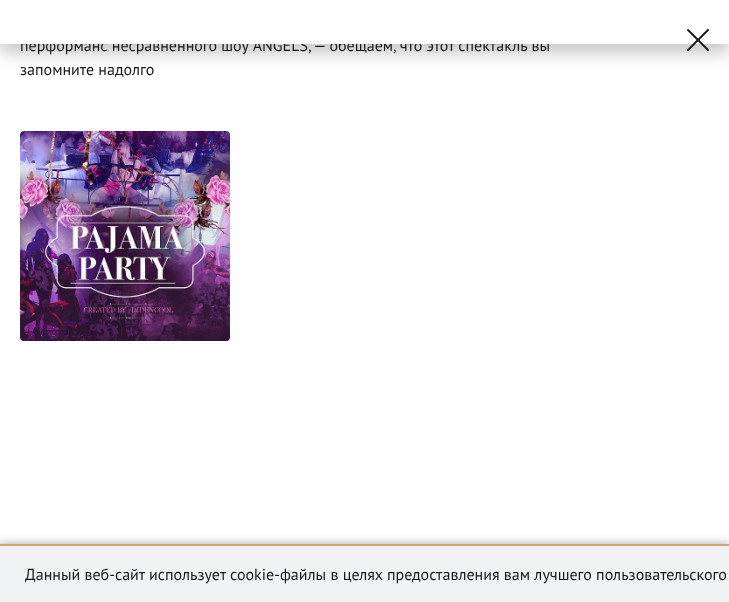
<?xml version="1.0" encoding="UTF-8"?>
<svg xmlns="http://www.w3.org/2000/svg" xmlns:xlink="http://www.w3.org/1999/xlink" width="729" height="602">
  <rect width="100%" height="100%" fill="#ffffff" />
  <rect y="10" width="729" height="44" fill="#000000" fill-opacity="0.2" filter="blur(7.5px)" />
  <image x="20" y="131" width="210" height="210" xlink:href="image1.png" />
  <rect y="544" width="729" height="58" fill="#666666" fill-opacity="0.59" filter="blur(5px)" />
  <rect y="546" width="729" height="56" fill="#f0f2f3" />
  <rect y="544" width="729" height="2" fill="#cca67a" />
  <text x="20" y="51" style="font-family: PT Sans; font-size: 16px; fill: #171819">перформанс несравненного шоу ANGELS, — обещаем, что этот спектакль вы</text>
  <rect width="729" height="44" fill="#ffffff" />
  <text x="20" y="75" style="font-family: PT Sans; font-size: 16px; fill: #171819">запомните надолго</text>
  <image x="687" y="29" width="22" height="22" xlink:href="image2.png" />
  <text x="25" y="580" style="font-family: PT Sans; font-size: 16px; fill: #171819">Данный веб-сайт использует cookie-файлы в целях предоставления вам лучшего пользовательского</text>
</svg>
